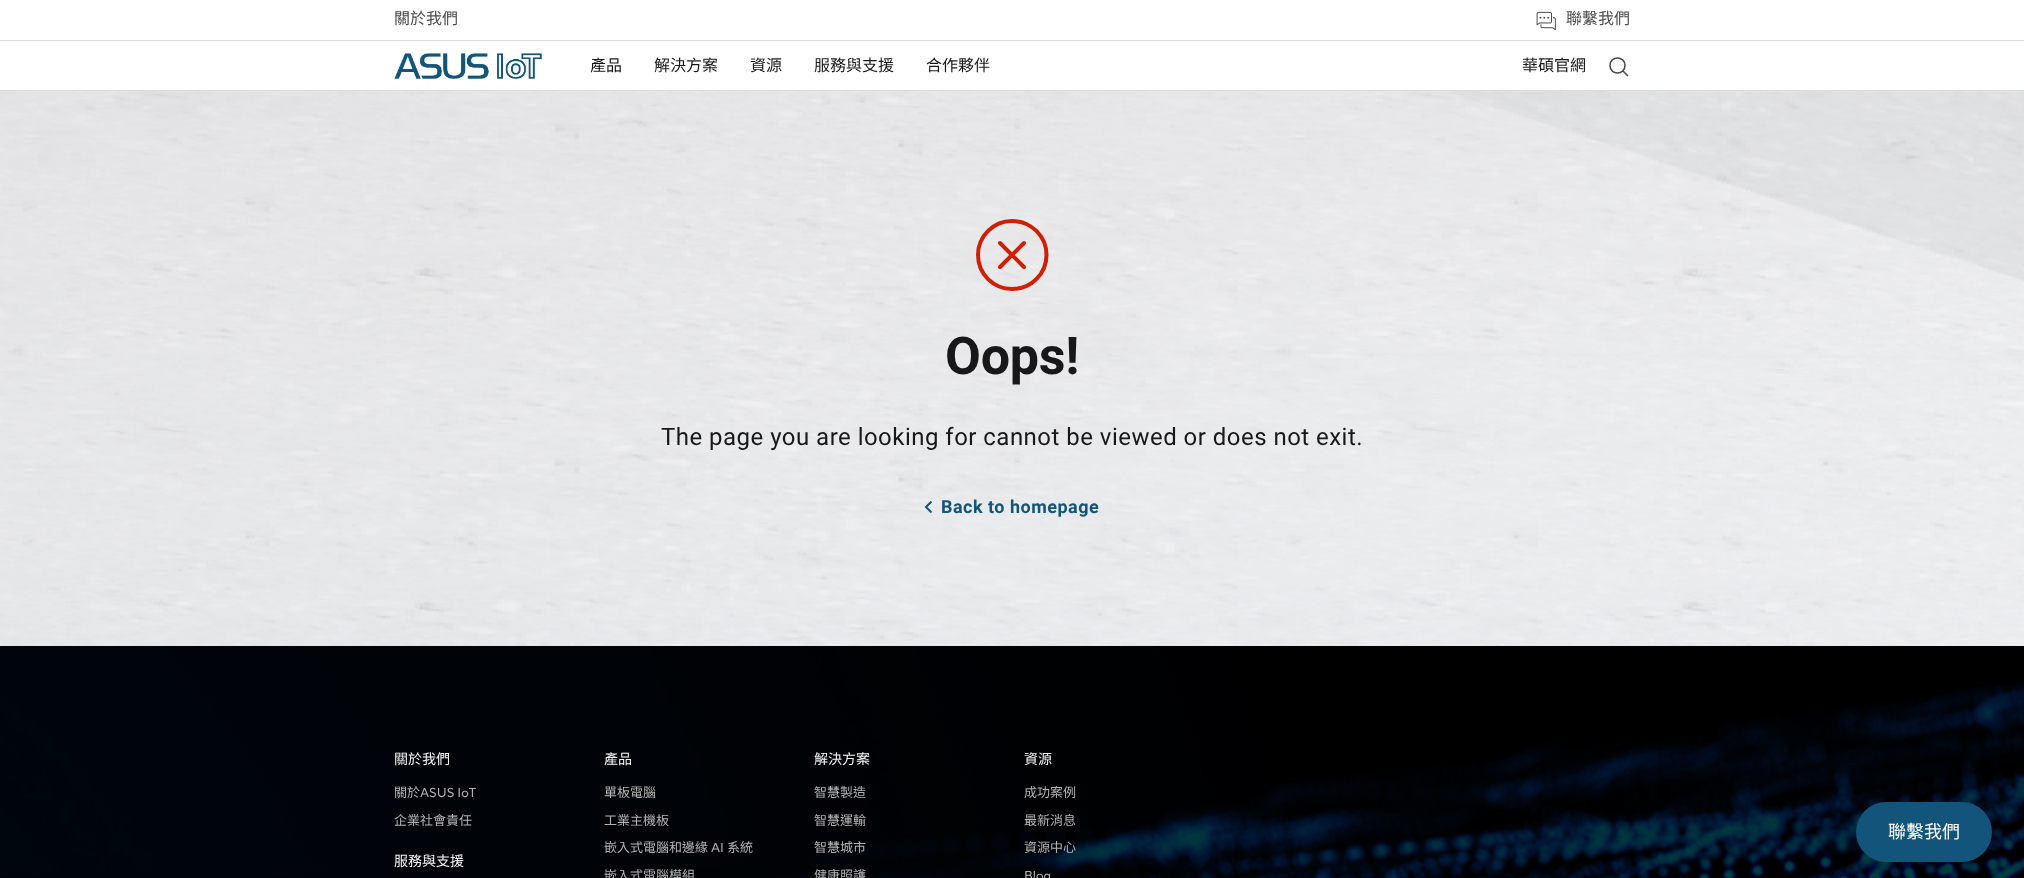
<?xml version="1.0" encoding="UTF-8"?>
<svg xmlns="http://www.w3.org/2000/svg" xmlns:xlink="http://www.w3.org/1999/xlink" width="2024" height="878">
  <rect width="100%" height="100%" fill="#000000" />
  <rect width="2024" height="90" fill="#ffffff" />
  <rect y="90" width="2024" height="1" fill="#dadce0" />
  <rect y="40" width="2024" height="1" fill="#dcdcdc" />
  <image x="1536" y="11" width="20" height="20" xlink:href="image1.png" />
  <image x="394" y="53" width="148" height="26" xlink:href="image2.png" />
  <path d="M 1623 71 l 4.5 4.5 m -2.5 -10 c 0 10 -15 10 -15 0 c 0 -10 15 -10 15 0 z" fill="none" stroke="#4d4d4d" stroke-width="1.6" stroke-linecap="round" />
  <image x="0" y="91" width="2024" height="555" xlink:href="image3.png" />
  <path d="M 1046.5 255 c 0 19 -15.5 34 -34.5 34 c -18.5 0 -34 -15 -34 -34 c 0 -19 15.5 -34 34 -34 c 19 0 34.5 15 34.5 34 z" fill="none" stroke="#cf2006" stroke-width="4" />
  <path d="M 1000 243 l 24 24 m -24 0 l 24 -24" fill="none" stroke="#cf2006" stroke-width="4" stroke-linecap="round" stroke-linejoin="round" />
  <path d="M 931.5 512.5 l -5.5 -5.5 l 5.5 -5.5" fill="none" stroke="#13547a" stroke-width="2" />
  <image x="0" y="646" width="2024" height="232" xlink:href="image4.png" />
  <rect x="1856" y="802" width="136" height="60" rx="30" fill="#13547a" />
  <text x="394" y="24" style="font-family: Noto Sans CJK TC; font-size: 16px; fill: #4d4d4d">關於我們</text>
  <text x="1566" y="24" style="font-family: Noto Sans CJK TC; font-size: 16px; fill: #4d4d4d">聯繫我們</text>
  <text x="590" y="71" style="font-family: Noto Sans CJK TC; font-size: 16px; fill: #181818">產品</text>
  <text x="654" y="71" style="font-family: Noto Sans CJK TC; font-size: 16px; fill: #181818">解決方案</text>
  <text x="750" y="71" style="font-family: Noto Sans CJK TC; font-size: 16px; fill: #181818">資源</text>
  <text x="814" y="71" style="font-family: Noto Sans CJK TC; font-size: 16px; fill: #181818">服務與支援</text>
  <text x="926" y="71" style="font-family: Noto Sans CJK TC; font-size: 16px; fill: #181818">合作夥伴</text>
  <text x="1522" y="71" style="font-family: Noto Sans CJK TC; font-size: 16px; fill: #181818">華碩官網</text>
  <text x="945" y="374" style="font-family: Roboto; font-size: 52px; font-weight: bold; letter-spacing: -0.25px; fill: #181818">Oops!</text>
  <text x="661" y="445" style="font-family: Roboto; font-size: 24px; letter-spacing: 0.48px; fill: #181818">The page you are looking for cannot be viewed or does not exit.</text>
  <text x="941" y="513" style="font-family: Roboto; font-size: 18px; font-weight: bold; letter-spacing: 0.48px; fill: #13547a">Back to homepage</text>
  <text x="394" y="764" style="font-family: Noto Sans CJK TC; font-size: 14px; fill: #f5f5f5">關於我們</text>
  <text x="394" y="797" style="font-family: Noto Sans CJK TC; font-size: 13px; fill: #b3b3b3">關於</text>
  <text x="420" y="797" style="font-family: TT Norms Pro; font-size: 13px; fill: #b3b3b3">ASUS IoT</text>
  <text x="394" y="825" style="font-family: Noto Sans CJK TC; font-size: 13px; fill: #b3b3b3">企業社會責任</text>
  <text x="394" y="866" style="font-family: Noto Sans CJK TC; font-size: 14px; fill: #f5f5f5">服務與支援</text>
  <text x="604" y="764" style="font-family: Noto Sans CJK TC; font-size: 14px; fill: #f5f5f5">產品</text>
  <text x="604" y="797" style="font-family: Noto Sans CJK TC; font-size: 13px; fill: #b3b3b3">單板電腦</text>
  <text x="604" y="825" style="font-family: Noto Sans CJK TC; font-size: 13px; fill: #b3b3b3">工業主機板</text>
  <text x="604" y="852" style="font-family: Noto Sans CJK TC; font-size: 13px; fill: #b3b3b3">嵌入式電腦和邊緣</text>
  <text x="711" y="852" style="font-family: TT Norms Pro; font-size: 13px; fill: #b3b3b3">AI</text>
  <text x="727" y="852" style="font-family: Noto Sans CJK TC; font-size: 13px; fill: #b3b3b3">系統</text>
  <text x="604" y="880" style="font-family: Noto Sans CJK TC; font-size: 13px; fill: #b3b3b3">嵌入式電腦模組</text>
  <text x="814" y="764" style="font-family: Noto Sans CJK TC; font-size: 14px; fill: #f5f5f5">解決方案</text>
  <text x="814" y="797" style="font-family: Noto Sans CJK TC; font-size: 13px; fill: #b3b3b3">智慧製造</text>
  <text x="814" y="825" style="font-family: Noto Sans CJK TC; font-size: 13px; fill: #b3b3b3">智慧運輸</text>
  <text x="814" y="852" style="font-family: Noto Sans CJK TC; font-size: 13px; fill: #b3b3b3">智慧城市</text>
  <text x="814" y="880" style="font-family: Noto Sans CJK TC; font-size: 13px; fill: #b3b3b3">健康照護</text>
  <text x="1024" y="764" style="font-family: Noto Sans CJK TC; font-size: 14px; fill: #f5f5f5">資源</text>
  <text x="1024" y="797" style="font-family: Noto Sans CJK TC; font-size: 13px; fill: #b3b3b3">成功案例</text>
  <text x="1024" y="825" style="font-family: Noto Sans CJK TC; font-size: 13px; fill: #b3b3b3">最新消息</text>
  <text x="1024" y="852" style="font-family: Noto Sans CJK TC; font-size: 13px; fill: #b3b3b3">資源中心</text>
  <text x="1024" y="880" style="font-family: TT Norms Pro; font-size: 13px; fill: #b3b3b3">Blog</text>
  <text x="1888" y="838" style="font-family: Noto Sans CJK TC; font-size: 18px; fill: #ffffff">聯繫我們</text>
</svg>
